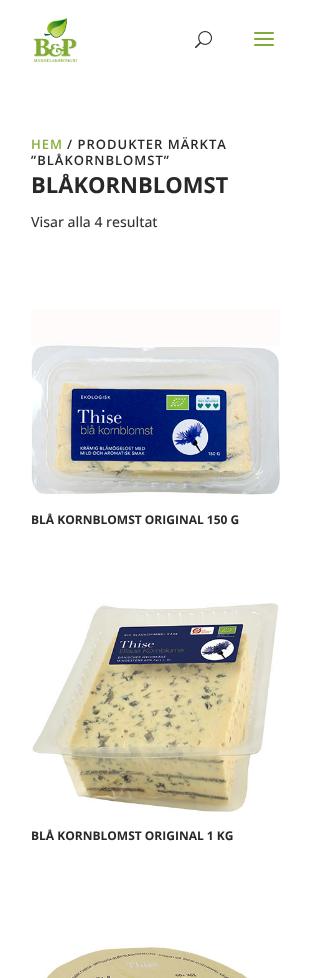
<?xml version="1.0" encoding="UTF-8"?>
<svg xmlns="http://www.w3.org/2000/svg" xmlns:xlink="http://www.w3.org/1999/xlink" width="311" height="978">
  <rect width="100%" height="100%" fill="#ffffff" />
  <image x="34" y="18" width="43" height="44" xlink:href="image1.png" />
  <image x="195" y="31" width="17" height="18" xlink:href="image2.png" />
  <image x="254" y="32" width="20" height="14" xlink:href="image3.png" />
  <image x="31" y="309" width="249" height="187" xlink:href="image4.png" />
  <image x="31" y="603" width="249" height="209" xlink:href="image5.png" />
  <image x="46" y="945" width="204" height="33" xlink:href="image6.png" />
  <text x="31" y="149" style="font-family: Open Sans; font-size: 13px; font-weight: 600; letter-spacing: 1px; fill: #87af3f">HEM</text>
  <text x="67" y="149" style="font-family: Open Sans; font-size: 13px; font-weight: 600; letter-spacing: 1px; fill: #282828">/ PRODUKTER MÄRKTA</text>
  <text x="31" y="165" style="font-family: Open Sans; font-size: 13px; font-weight: 600; letter-spacing: 1px; fill: #282828">”BLÅKORNBLOMST”</text>
  <text x="31" y="193" style="font-family: Open Sans; font-size: 22px; font-weight: bold; fill: #282828">BLÅKORNBLOMST</text>
  <text x="31" y="227" style="font-family: Open Sans; font-size: 14px; font-weight: 500; fill: #333333">Visar alla 4 resultat</text>
  <text x="31" y="524" style="font-family: Open Sans; font-size: 12px; font-weight: bold; fill: #282828">BLÅ KORNBLOMST ORIGINAL 150 G</text>
  <text x="31" y="840" style="font-family: Open Sans; font-size: 12px; font-weight: bold; fill: #282828">BLÅ KORNBLOMST ORIGINAL 1 KG</text>
</svg>
